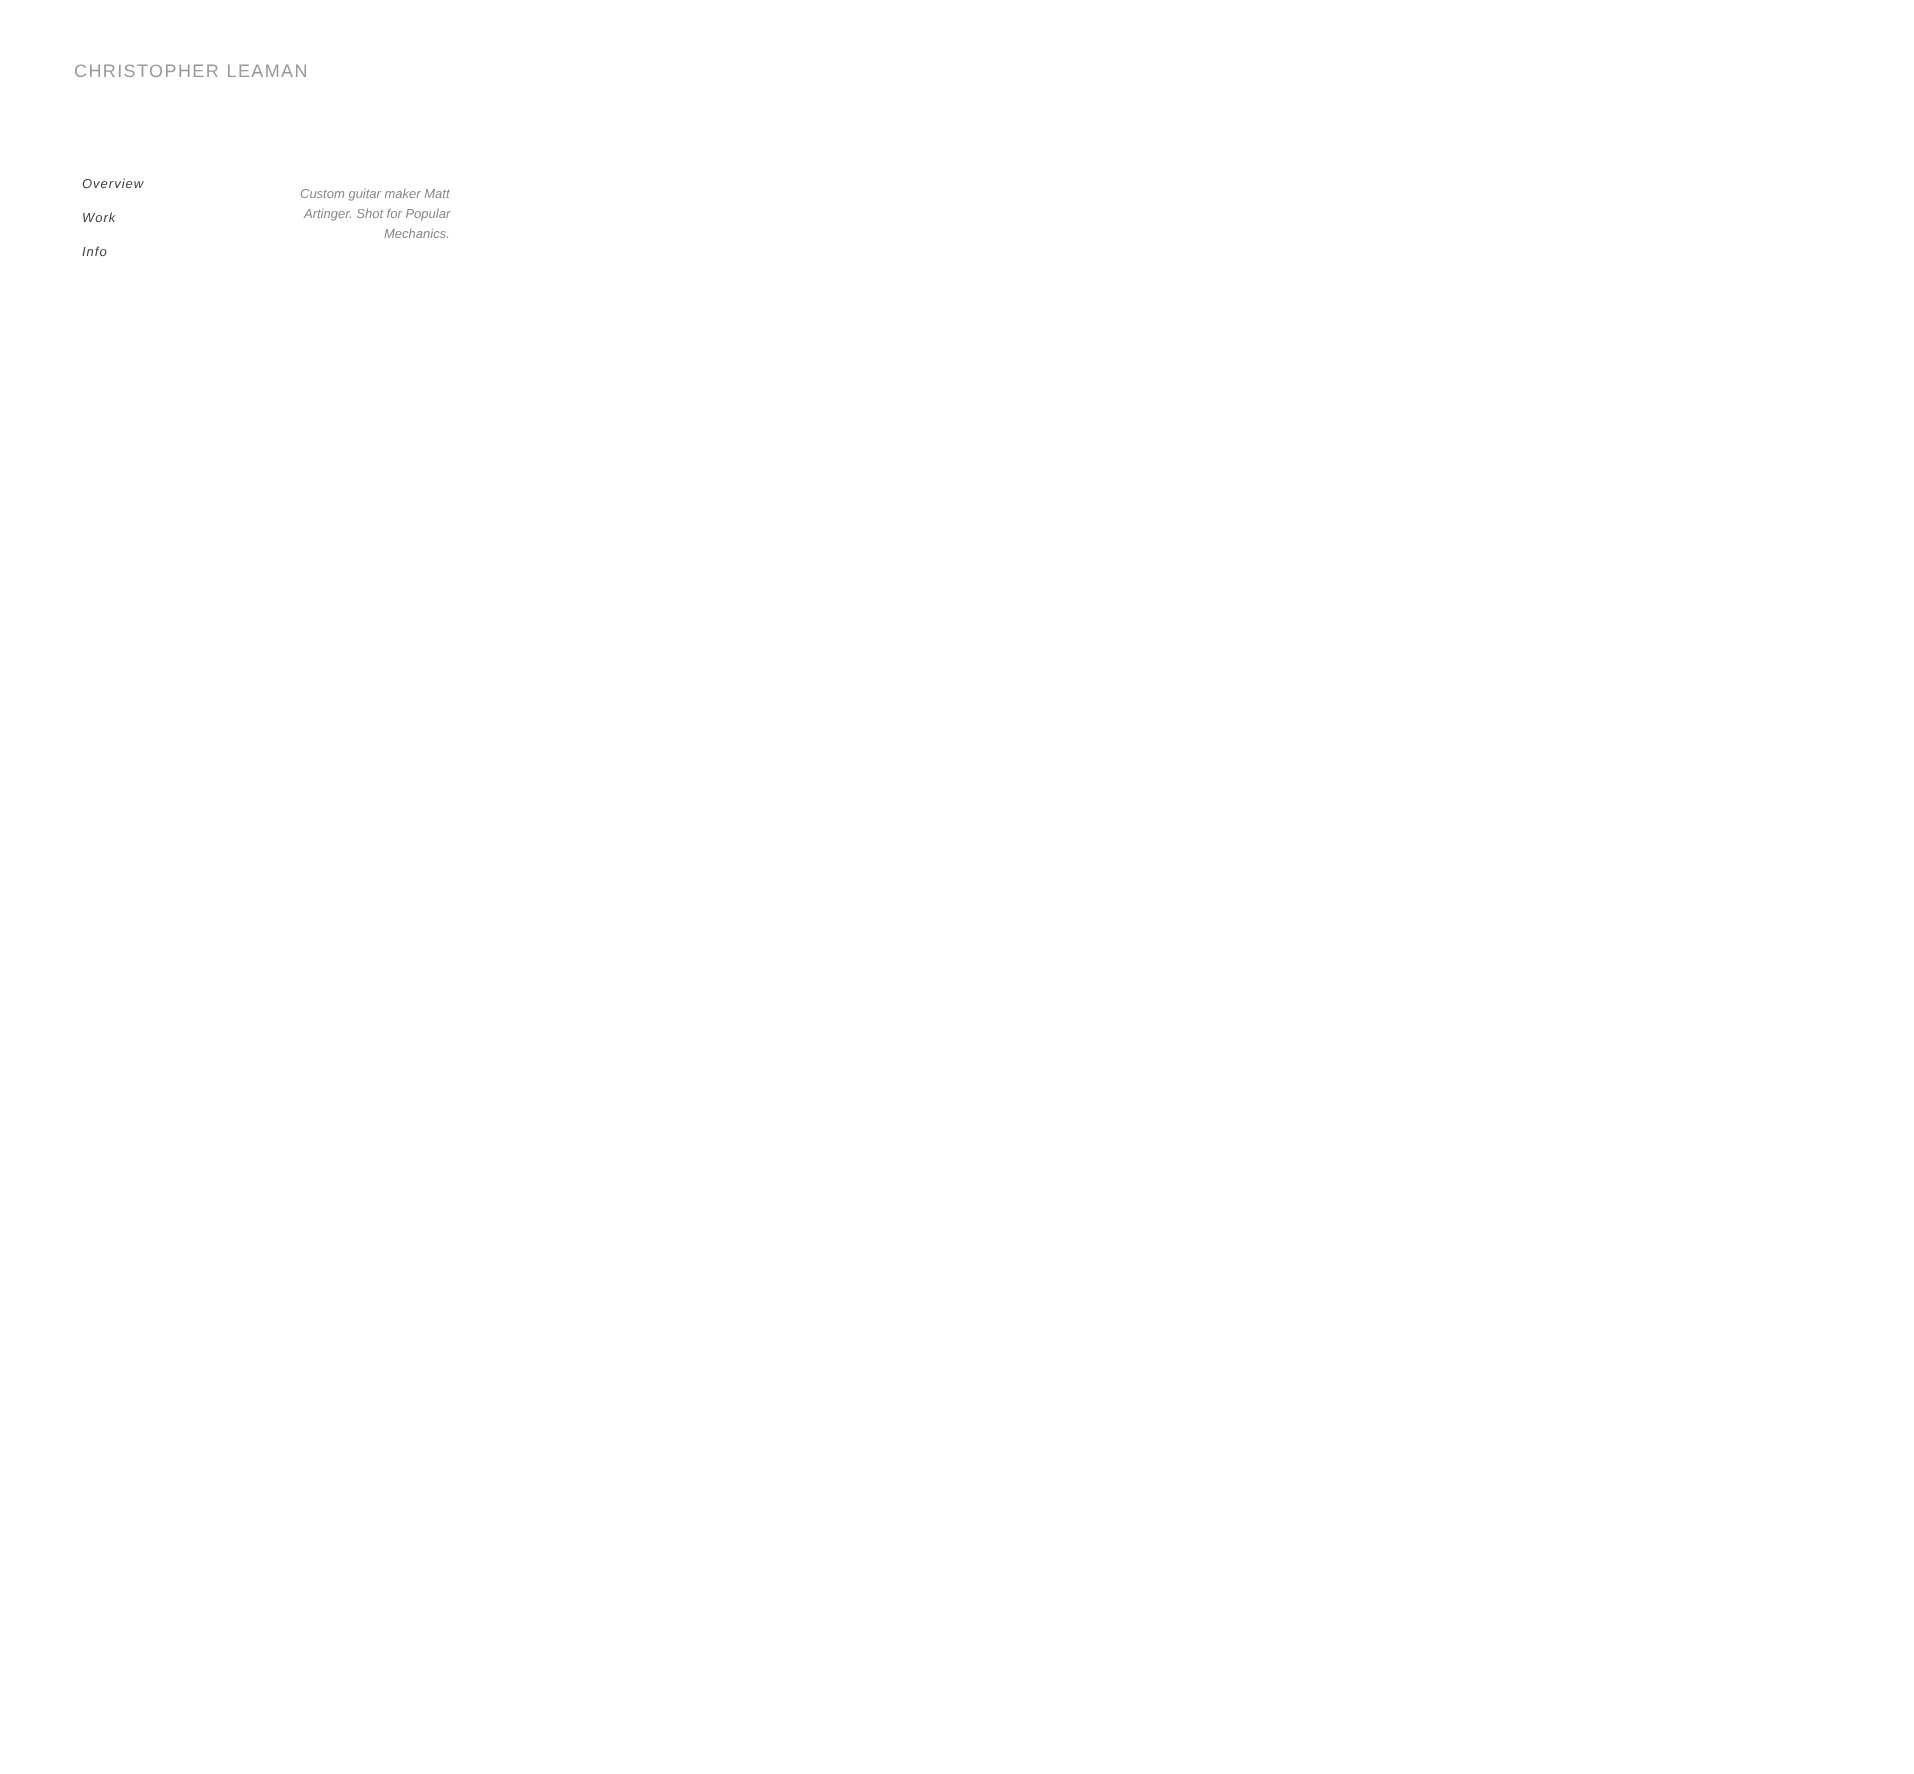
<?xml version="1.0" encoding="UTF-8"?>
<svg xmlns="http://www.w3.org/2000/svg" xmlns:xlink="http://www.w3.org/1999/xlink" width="1914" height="1774">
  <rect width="100%" height="100%" fill="#ffffff" />
  <text x="74" y="77" style="font-family: Liberation Sans; font-size: 18px; letter-spacing: 1.4px; fill: #999999">CHRISTOPHER LEAMAN</text>
  <text x="82" y="188" style="font-family: Liberation Sans; font-size: 13px; font-style: italic; letter-spacing: 1px; fill: #404040">Overview</text>
  <text x="82" y="222" style="font-family: Liberation Sans; font-size: 13px; font-style: italic; letter-spacing: 1px; fill: #404040">Work</text>
  <text x="82" y="256" style="font-family: Liberation Sans; font-size: 13px; font-style: italic; letter-spacing: 1px; fill: #404040">Info</text>
  <text x="300" y="198" style="font-family: Liberation Sans; font-size: 13px; font-style: italic; fill: #888888">Custom guitar maker Matt</text>
  <text x="304" y="218" style="font-family: Liberation Sans; font-size: 13px; font-style: italic; fill: #888888">Artinger. Shot for Popular</text>
  <text x="384" y="238" style="font-family: Liberation Sans; font-size: 13px; font-style: italic; fill: #888888">Mechanics.</text>
</svg>
